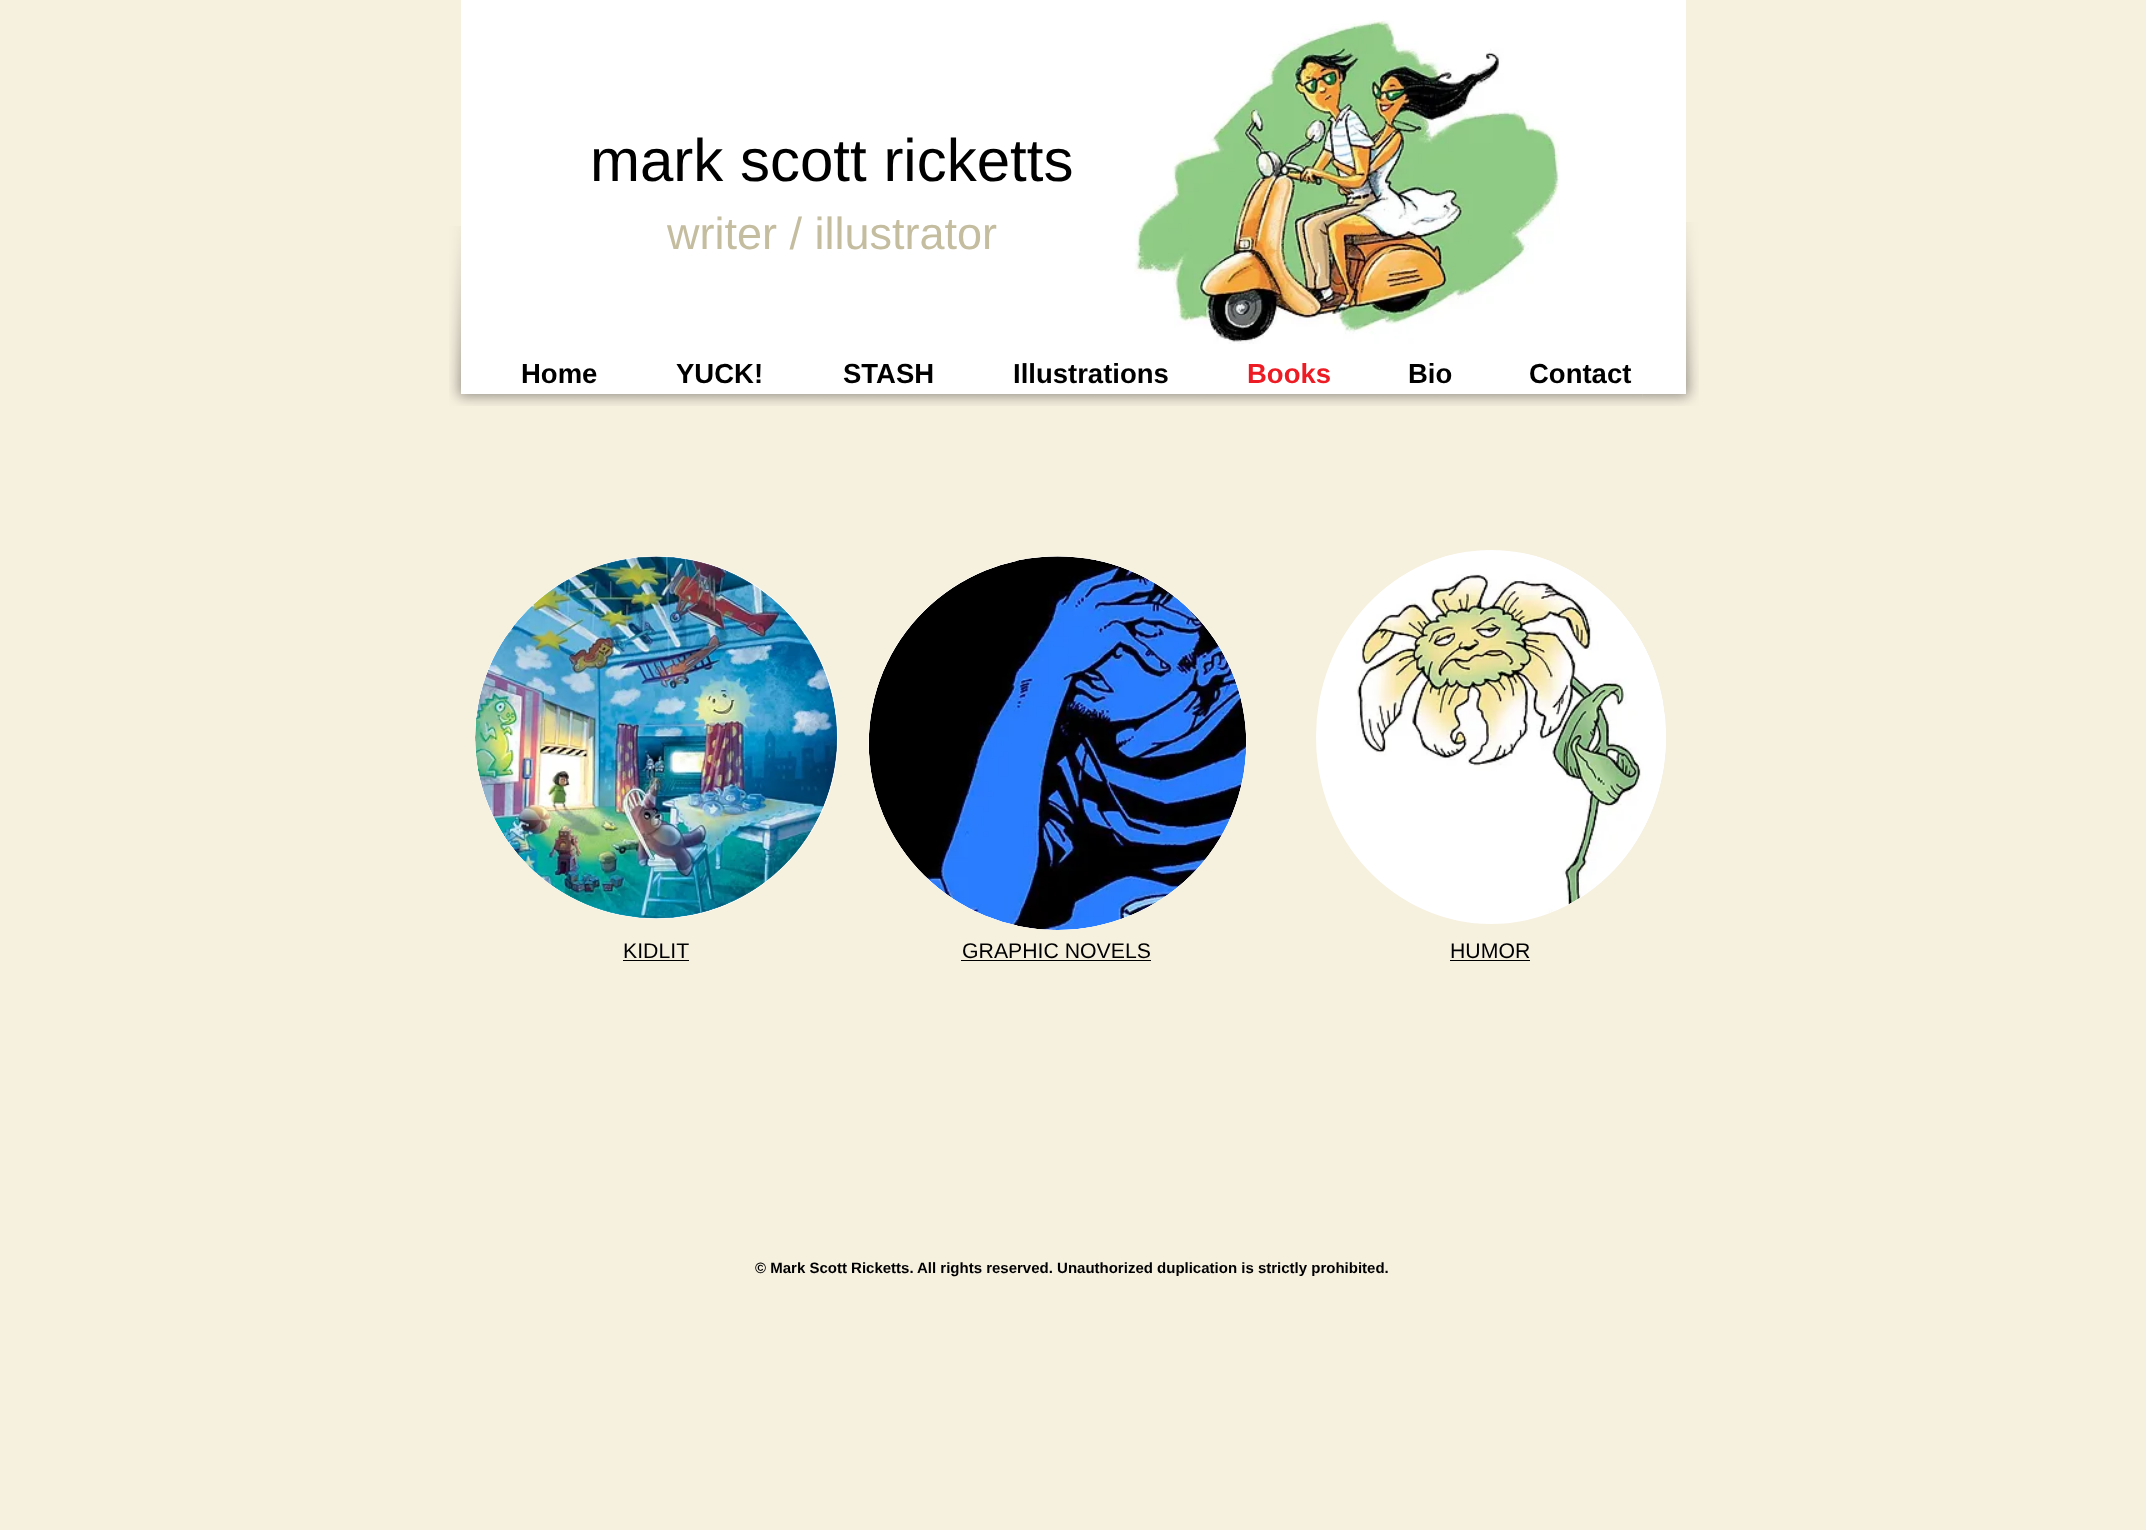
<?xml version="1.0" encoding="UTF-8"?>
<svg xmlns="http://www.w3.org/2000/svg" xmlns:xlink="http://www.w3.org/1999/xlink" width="2146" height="1530">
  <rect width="100%" height="100%" fill="#f6f0df" />
  <image x="449" y="226" width="56" height="180" xlink:href="image1.png" />
  <image x="505" y="394" width="1138" height="12" xlink:href="image2.png" />
  <image x="1642" y="222" width="57" height="184" xlink:href="image3.png" />
  <rect x="461" width="1225" height="394" fill="#ffffff" />
  <image x="1134" y="20" width="426" height="324" xlink:href="image4.png" />
  <circle cx="656.5" cy="737.5" r="181.5" fill="#ffffff" />
  <image x="475" y="556" width="363" height="363" xlink:href="image5.png" />
  <ellipse cx="1057.5" cy="743" rx="189" ry="187" fill="#ffffff" />
  <image x="869" y="556" width="377" height="374" xlink:href="image6.png" />
  <ellipse cx="1491" cy="737" rx="175" ry="187" fill="#ffffff" />
  <image x="1356" y="553" width="310" height="360" xlink:href="image7.png" />
  <rect x="623" y="960" width="66" height="1" fill="#000000" />
  <rect x="961" y="960" width="190" height="1" fill="#000000" />
  <rect x="1450" y="960" width="80" height="1" fill="#000000" />
  <text x="590" y="181" style="font-family: Liberation Sans; font-size: 60px; fill: #000000">mark scott ricketts</text>
  <text x="667" y="249" style="font-family: Liberation Sans; font-size: 45px; fill: #c5bda0">writer / illustrator</text>
  <text x="521" y="383" style="font-family: Liberation Sans; font-size: 27.5px; font-weight: bold; fill: #000000">Home</text>
  <text x="676" y="383" style="font-family: Liberation Sans; font-size: 27.5px; font-weight: bold; fill: #000000">YUCK!</text>
  <text x="843" y="383" style="font-family: Liberation Sans; font-size: 27.5px; font-weight: bold; fill: #000000">STASH</text>
  <text x="1013" y="383" style="font-family: Liberation Sans; font-size: 27.5px; font-weight: bold; fill: #000000">Illustrations</text>
  <text x="1247" y="383" style="font-family: Liberation Sans; font-size: 27.5px; font-weight: bold; fill: #ed1c24">Books</text>
  <text x="1408" y="383" style="font-family: Liberation Sans; font-size: 27.5px; font-weight: bold; fill: #000000">Bio</text>
  <text x="1529" y="383" style="font-family: Liberation Sans; font-size: 27.5px; font-weight: bold; fill: #000000">Contact</text>
  <text x="623" y="958" style="font-family: Liberation Sans; font-size: 21.25px; fill: #000000">KIDLIT</text>
  <text x="962" y="958" style="font-family: Liberation Sans; font-size: 21.25px; fill: #000000">GRAPHIC NOVELS</text>
  <text x="1450" y="958" style="font-family: Liberation Sans; font-size: 21.25px; fill: #000000">HUMOR</text>
  <text x="755" y="1273" style="font-family: Liberation Sans; font-size: 15px; font-weight: bold; fill: #000000">© Mark Scott Ricketts.</text>
  <text x="917" y="1273" style="font-family: Liberation Sans; font-size: 15px; font-weight: bold; fill: #000000">All rights reserved. Unauthorized duplication is strictly prohibited.</text>
</svg>
